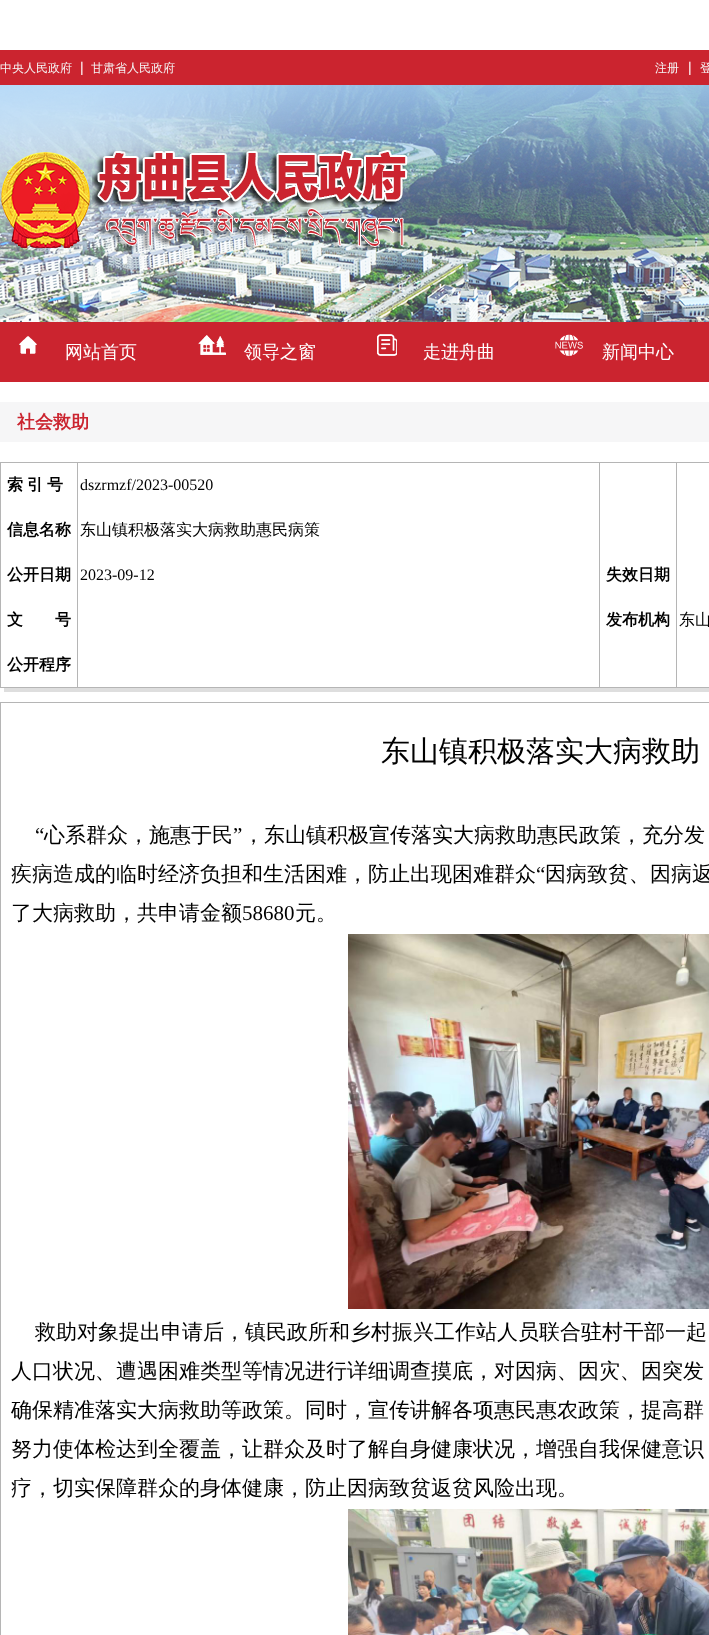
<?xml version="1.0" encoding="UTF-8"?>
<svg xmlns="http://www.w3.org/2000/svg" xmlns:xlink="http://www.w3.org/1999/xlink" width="709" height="1635">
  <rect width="100%" height="100%" fill="#ffffff" />
  <rect y="50" width="709" height="35" fill="#cb242f" />
  <image x="0" y="85" width="709" height="237" xlink:href="image1.png" />
  <image x="1" y="150" width="407" height="100" xlink:href="image2.png" />
  <rect y="322" width="709" height="60" fill="#cb242f" />
  <image x="19" y="336" width="18" height="18" xlink:href="image3.png" />
  <image x="198" y="335" width="28" height="20" xlink:href="image4.png" />
  <image x="377" y="334" width="20" height="22" xlink:href="image5.png" />
  <image x="555" y="334" width="28" height="22" xlink:href="image6.png" />
  <rect y="402" width="709" height="40" fill="#f6f6f7" />
  <rect x="4" y="688" width="705" height="4" fill="#dedede" />
  <rect y="462" width="709" height="226" fill="#b5b5b5" />
  <rect x="1" y="463" width="76" height="224" fill="#ffffff" />
  <rect x="78" y="463" width="521" height="224" fill="#ffffff" />
  <rect x="600" y="463" width="76" height="224" fill="#ffffff" />
  <rect x="677" y="463" width="32" height="224" fill="#ffffff" />
  <rect x="0.5" y="702.5" width="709" height="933" fill="none" stroke="#b5b5b5" />
  <image x="348" y="934" width="361" height="375" xlink:href="image7.png" />
  <image x="348" y="1509" width="361" height="126" xlink:href="image8.png" />
  <text x="0" y="72" style="font-family: WenQuanYi Zen Hei; font-size: 12px; font-weight: 500; fill: #f5f5f5">中央人民政府</text>
  <text x="80" y="72" style="font-family: Liberation Sans; font-size: 14px; fill: #ffffff">|</text>
  <text x="91" y="72" style="font-family: WenQuanYi Zen Hei; font-size: 12px; font-weight: 500; fill: #f5f5f5">甘肃省人民政府</text>
  <text x="655" y="72" style="font-family: WenQuanYi Zen Hei; font-size: 12px; font-weight: 500; fill: #f5f5f5">注册</text>
  <text x="688" y="72" style="font-family: Liberation Sans; font-size: 14px; fill: #ffffff">|</text>
  <text x="700" y="72" style="font-family: WenQuanYi Zen Hei; font-size: 12px; font-weight: 500; fill: #f5f5f5">登</text>
  <text x="65" y="358" style="font-family: WenQuanYi Zen Hei; font-size: 18px; font-weight: 500; fill: #ffffff">网站首页</text>
  <text x="244" y="358" style="font-family: WenQuanYi Zen Hei; font-size: 18px; font-weight: 500; fill: #ffffff">领导之窗</text>
  <text x="423" y="358" style="font-family: WenQuanYi Zen Hei; font-size: 18px; font-weight: 500; fill: #ffffff">走进舟曲</text>
  <text x="602" y="358" style="font-family: WenQuanYi Zen Hei; font-size: 18px; font-weight: 500; fill: #ffffff">新闻中心</text>
  <text x="17" y="428" style="font-family: WenQuanYi Zen Hei; font-size: 18px; font-weight: bold; fill: #cb242f">社会救助</text>
  <text x="7" y="490" style="font-family: WenQuanYi Zen Hei; font-size: 16px; font-weight: bold; fill: #000000">索</text>
  <text x="27" y="490" style="font-family: WenQuanYi Zen Hei; font-size: 16px; font-weight: bold; fill: #000000">引</text>
  <text x="47" y="490" style="font-family: WenQuanYi Zen Hei; font-size: 16px; font-weight: bold; fill: #000000">号</text>
  <text x="80" y="490" style="font-family: Liberation Serif; font-size: 16px; fill: #000000">dszrmzf/2023-00520</text>
  <text x="7" y="535" style="font-family: WenQuanYi Zen Hei; font-size: 16px; font-weight: bold; fill: #000000">信息名称</text>
  <text x="80" y="535" style="font-family: WenQuanYi Zen Hei; font-size: 16px; font-weight: 500; fill: #000000">东山镇积极落实大病救助惠民病策</text>
  <text x="7" y="580" style="font-family: WenQuanYi Zen Hei; font-size: 16px; font-weight: bold; fill: #000000">公开日期</text>
  <text x="80" y="580" style="font-family: Liberation Serif; font-size: 16px; fill: #000000">2023-09-12</text>
  <text x="606" y="580" style="font-family: WenQuanYi Zen Hei; font-size: 16px; font-weight: bold; fill: #000000">失效日期</text>
  <text x="7" y="625" style="font-family: WenQuanYi Zen Hei; font-size: 16px; font-weight: bold; fill: #000000">文　　号</text>
  <text x="606" y="625" style="font-family: WenQuanYi Zen Hei; font-size: 16px; font-weight: bold; fill: #000000">发布机构</text>
  <text x="679" y="625" style="font-family: WenQuanYi Zen Hei; font-size: 16px; font-weight: 500; fill: #000000">东山</text>
  <text x="7" y="670" style="font-family: WenQuanYi Zen Hei; font-size: 16px; font-weight: bold; fill: #000000">公开程序</text>
  <text x="381" y="761" style="font-family: WenQuanYi Zen Hei; font-size: 29px; font-weight: 500; fill: #000000">东山镇积极落实大病救助</text>
  <text x="35" y="842" style="font-family: Liberation Serif; font-size: 21px; fill: #000000">“</text>
  <text x="44" y="842" style="font-family: WenQuanYi Zen Hei; font-size: 21px; font-weight: 500; fill: #000000">心系群众，施惠于民</text>
  <text x="233" y="842" style="font-family: Liberation Serif; font-size: 21px; fill: #000000">”</text>
  <text x="243" y="842" style="font-family: WenQuanYi Zen Hei; font-size: 21px; font-weight: 500; fill: #000000">，东山镇积极宣传落实大病救助惠民政策，充分发</text>
  <text x="11" y="881" style="font-family: WenQuanYi Zen Hei; font-size: 21px; font-weight: 500; fill: #000000">疾病造成的临时经济负担和生活困难，防止出现困难群众</text>
  <text x="536" y="881" style="font-family: Liberation Serif; font-size: 21px; fill: #000000">“</text>
  <text x="545" y="881" style="font-family: WenQuanYi Zen Hei; font-size: 21px; font-weight: 500; fill: #000000">因病致贫、因病返</text>
  <text x="11" y="920" style="font-family: WenQuanYi Zen Hei; font-size: 21px; font-weight: 500; fill: #000000">了大病救助，共申请金额</text>
  <text x="242" y="920" style="font-family: Liberation Serif; font-size: 21px; fill: #000000">58680</text>
  <text x="295" y="920" style="font-family: WenQuanYi Zen Hei; font-size: 21px; font-weight: 500; fill: #000000">元。</text>
  <text x="35" y="1339" style="font-family: WenQuanYi Zen Hei; font-size: 21px; font-weight: 500; fill: #000000">救助对象提出申请后，镇民政所和乡村振兴工作站人员联合驻村干部一起</text>
  <text x="11" y="1378" style="font-family: WenQuanYi Zen Hei; font-size: 21px; font-weight: 500; fill: #000000">人口状况、遭遇困难类型等情况进行详细调查摸底，对因病、因灾、因突发</text>
  <text x="11" y="1417" style="font-family: WenQuanYi Zen Hei; font-size: 21px; font-weight: 500; fill: #000000">确保精准落实大病救助等政策。同时，宣传讲解各项惠民惠农政策，提高群</text>
  <text x="11" y="1456" style="font-family: WenQuanYi Zen Hei; font-size: 21px; font-weight: 500; fill: #000000">努力使体检达到全覆盖，让群众及时了解自身健康状况，增强自我保健意识</text>
  <text x="11" y="1495" style="font-family: WenQuanYi Zen Hei; font-size: 21px; font-weight: 500; fill: #000000">疗，切实保障群众的身体健康，防止因病致贫返贫风险出现。</text>
</svg>
